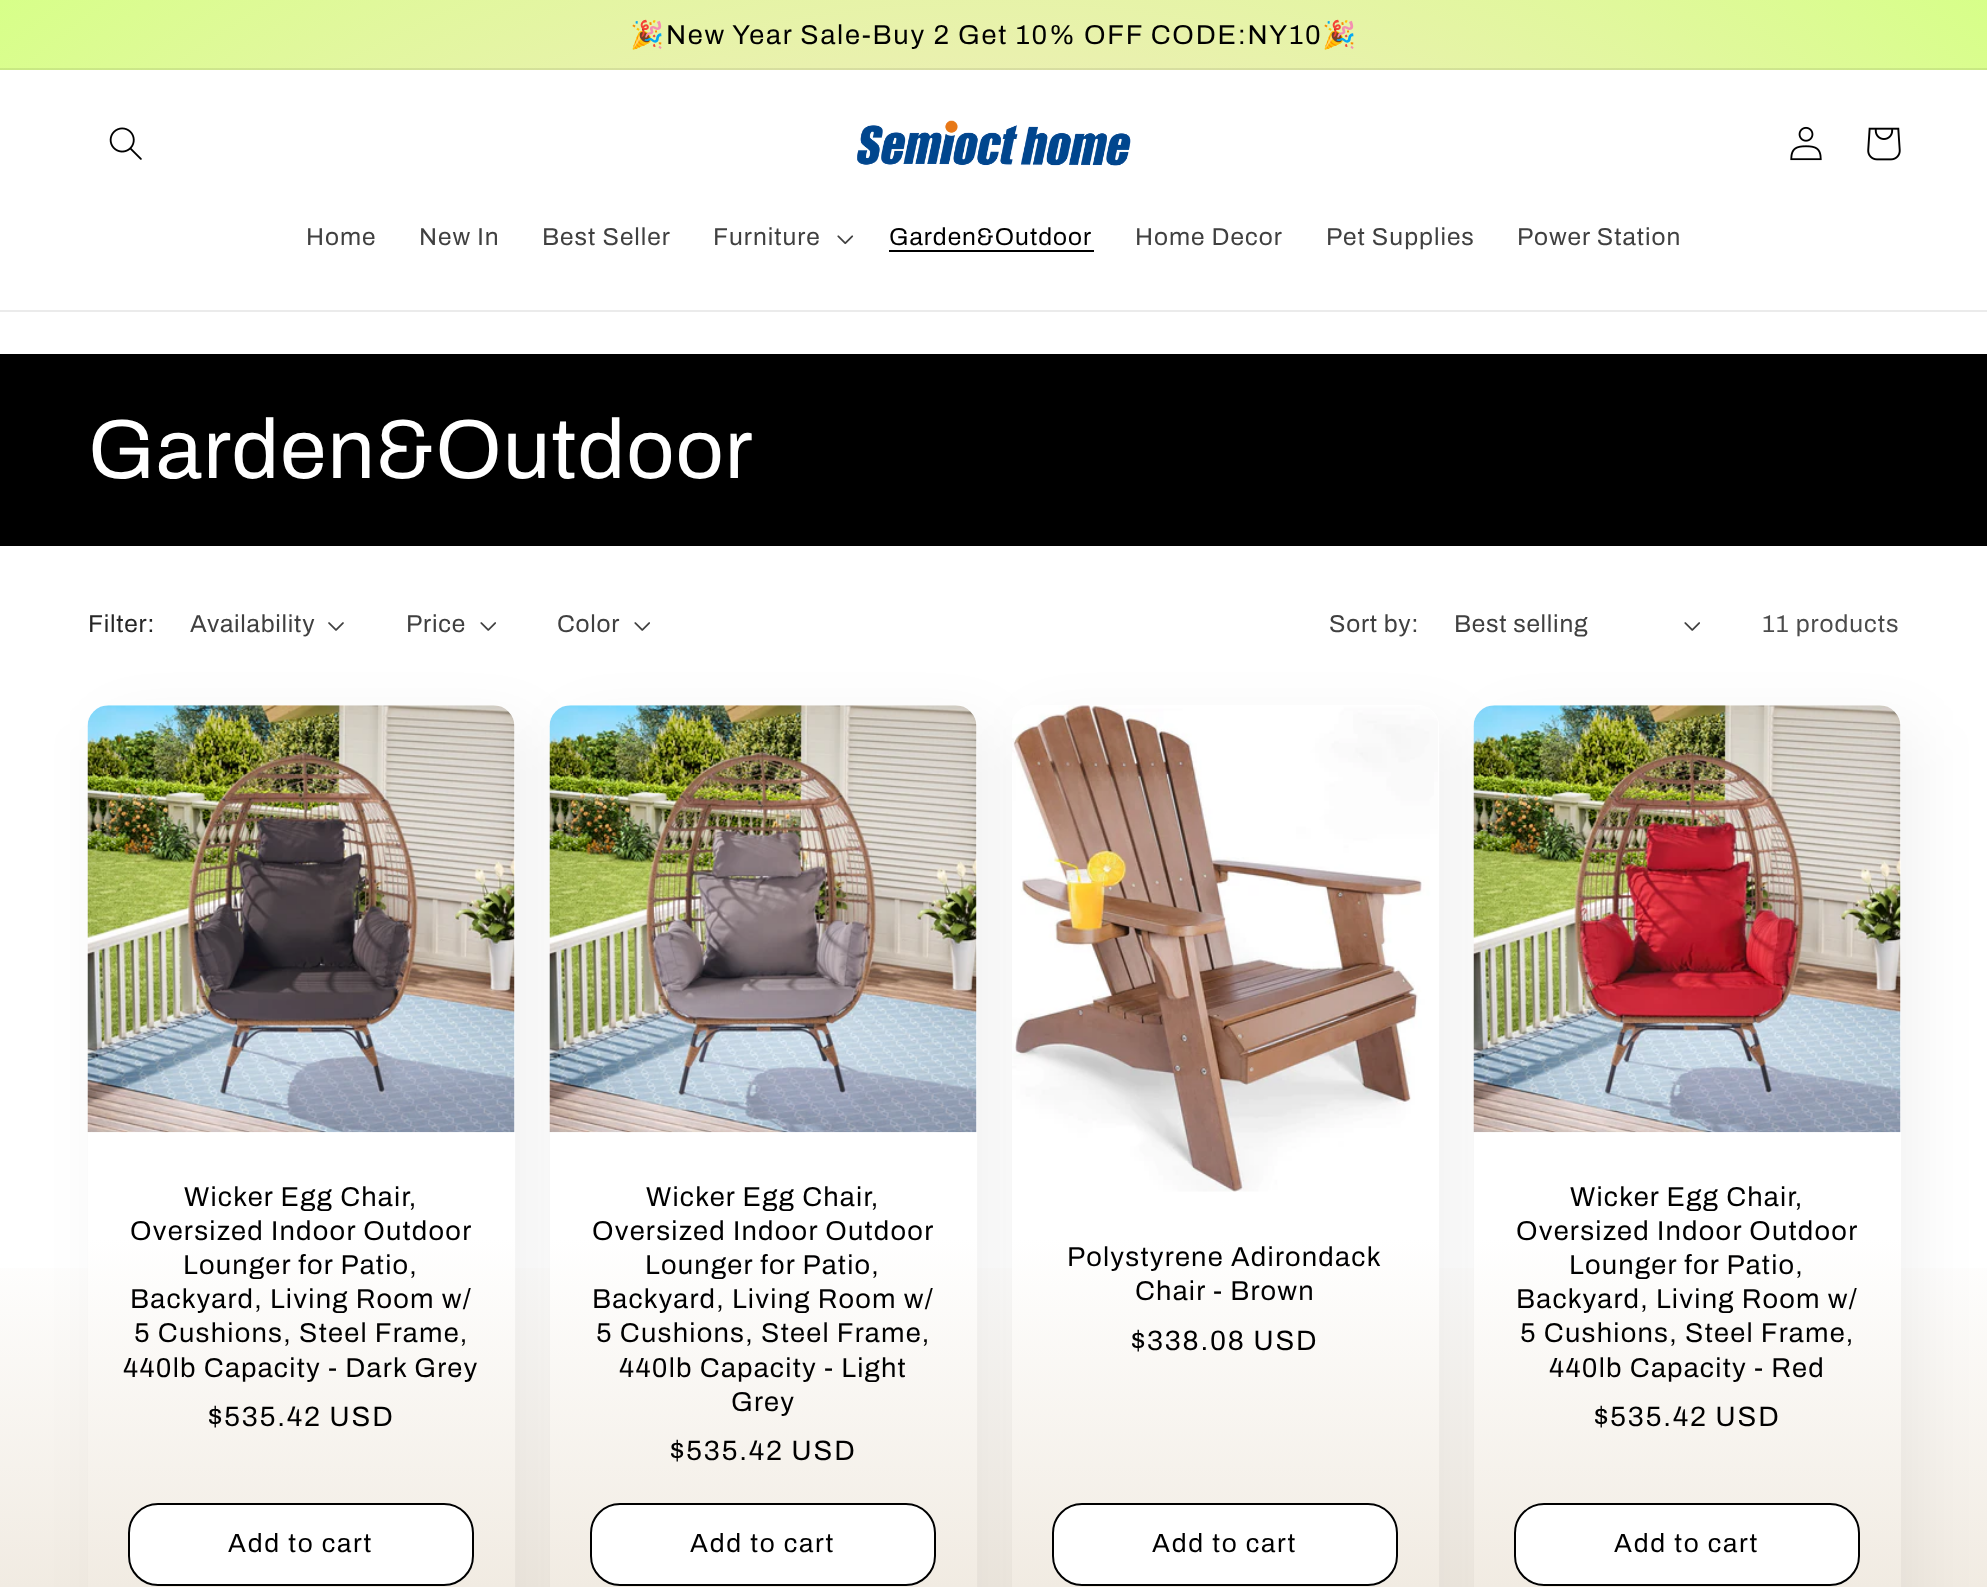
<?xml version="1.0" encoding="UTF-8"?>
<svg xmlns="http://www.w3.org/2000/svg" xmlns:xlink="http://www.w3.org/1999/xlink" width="1987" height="1587">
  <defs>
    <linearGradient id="g1" gradientUnits="userSpaceOnUse" x1="994" y1="0" x2="994" y2="1587"><stop offset="0.78" stop-color="#ffffff" /><stop offset="1" stop-color="#f1ebe2" /></linearGradient>
    <radialGradient id="g2" gradientUnits="userSpaceOnUse" cx="0" cy="0" r="1" gradientTransform="matrix(1406 0 0 1122 994 794)"><stop offset="0" stop-color="#ffe5e5" /><stop offset="0.25" stop-color="#ffe0da" /><stop offset="1" stop-color="#d7ff89" /></radialGradient>
    <radialGradient id="g3" gradientUnits="userSpaceOnUse" cx="0" cy="0" r="1" gradientTransform="matrix(1406 0 0 1122 994 794)"><stop offset="0" stop-color="#ebd3d3" /><stop offset="0.25" stop-color="#ebcec9" /><stop offset="1" stop-color="#c6eb7e" /></radialGradient>
  </defs>
  <rect width="100%" height="100%" fill="#ffffff" />
  <rect y="1268" width="1987" height="319" fill="url(#g1)" />
  <rect width="1987" height="68" fill="url(#g2)" />
  <rect y="68" width="1987" height="2" fill="url(#g3)" />
  <rect y="310" width="1987" height="2" fill="#ebebeb" />
  <image x="109" y="127" width="33" height="33" xlink:href="image1.png" />
  <image x="857" y="120" width="274" height="46" xlink:href="image2.png" />
  <image x="1790" y="126" width="32" height="35" xlink:href="image3.png" />
  <image x="1867" y="127" width="34" height="34" xlink:href="image4.png" />
  <image x="837" y="235" width="17" height="10" xlink:href="image5.png" />
  <rect x="889" y="250" width="205" height="2" fill="#000000" />
  <rect y="354" width="1987" height="192" fill="#000000" />
  <rect x="105" y="723" width="427" height="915" rx="21" fill="#000000" fill-opacity="0.05" filter="blur(30.5px)" />
  <image x="328" y="622" width="16" height="9" xlink:href="image6.png" />
  <rect x="567" y="723" width="427" height="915" rx="21" fill="#000000" fill-opacity="0.05" filter="blur(30.5px)" />
  <image x="480" y="622" width="16" height="9" xlink:href="image7.png" />
  <image x="634" y="622" width="16" height="9" xlink:href="image7.png" />
  <rect x="1491" y="723" width="427" height="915" rx="21" fill="#000000" fill-opacity="0.05" filter="blur(30.5px)" />
  <image x="1684" y="622" width="16" height="9" xlink:href="image7.png" />
  <path d="M 109 705 h 385 c 11.5 0 21 9.5 21 21 v 861 h -427 v -861 c 0 -11.5 9.5 -21 21 -21 z" fill="url(#g1)" />
  <image x="87" y="705" width="428" height="428" xlink:href="image8.png" />
  <rect x="128" y="1503" width="346" height="83" rx="30" fill="#ffffff" />
  <rect x="129" y="1504" width="344" height="81" rx="29" fill="none" stroke="#ffffff" stroke-width="2" />
  <rect x="129" y="1504" width="344" height="81" rx="29" fill="none" stroke="#000000" stroke-width="2" />
  <rect x="1029" y="723" width="427" height="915" rx="21" fill="#000000" fill-opacity="0.05" filter="blur(30.5px)" />
  <path d="M 571 705 h 385 c 11.5 0 21 9.5 21 21 v 861 h -427 v -861 c 0 -11.5 9.5 -21 21 -21 z" fill="url(#g1)" />
  <image x="549" y="705" width="428" height="428" xlink:href="image9.png" />
  <rect x="590" y="1503" width="346" height="83" rx="30" fill="#ffffff" />
  <rect x="591" y="1504" width="344" height="81" rx="29" fill="none" stroke="#ffffff" stroke-width="2" />
  <rect x="591" y="1504" width="344" height="81" rx="29" fill="none" stroke="#000000" stroke-width="2" />
  <path d="M 1033 705 h 385 c 11.5 0 21 9.5 21 21 v 861 h -427 v -861 c 0 -11.5 9.5 -21 21 -21 z" fill="url(#g1)" />
  <image x="1012" y="705" width="426" height="487" xlink:href="image10.png" />
  <rect x="1052" y="1503" width="346" height="83" rx="30" fill="#ffffff" />
  <rect x="1053" y="1504" width="344" height="81" rx="29" fill="none" stroke="#ffffff" stroke-width="2" />
  <rect x="1053" y="1504" width="344" height="81" rx="29" fill="none" stroke="#000000" stroke-width="2" />
  <path d="M 1495 705 h 385 c 11.5 0 21 9.5 21 21 v 861 h -427 v -861 c 0 -11.5 9.5 -21 21 -21 z" fill="url(#g1)" />
  <image x="1473" y="705" width="428" height="428" xlink:href="image11.png" />
  <rect x="1514" y="1503" width="346" height="83" rx="30" fill="#ffffff" />
  <rect x="1515" y="1504" width="344" height="81" rx="29" fill="none" stroke="#ffffff" stroke-width="2" />
  <rect x="1515" y="1504" width="344" height="81" rx="29" fill="none" stroke="#000000" stroke-width="2" />
  <text x="630" y="44" style="font-family: Noto Color Emoji; font-size: 27.3px; letter-spacing: 1.75px; fill: #000000">🎉</text>
  <text x="666" y="44" style="font-family: Archivo; font-size: 27.3px; letter-spacing: 1.75px; fill: #000000">New Year Sale-Buy 2 Get 10% OFF CODE:NY10</text>
  <text x="1322" y="44" style="font-family: Noto Color Emoji; font-size: 27.3px; letter-spacing: 1.75px; fill: #000000">🎉</text>
  <text x="306" y="245" style="font-family: Archivo; font-size: 24.5px; letter-spacing: 1px; fill: #404040">Home</text>
  <text x="419" y="245" style="font-family: Archivo; font-size: 24.5px; letter-spacing: 1px; fill: #404040">New In</text>
  <text x="542" y="245" style="font-family: Archivo; font-size: 24.5px; letter-spacing: 1px; fill: #404040">Best Seller</text>
  <text x="713" y="245" style="font-family: Archivo; font-size: 24.5px; letter-spacing: 1px; fill: #404040">Furniture</text>
  <text x="889" y="245" style="font-family: Archivo; font-size: 24.5px; letter-spacing: 1px; fill: #000000">Garden&amp;Outdoor</text>
  <text x="1135" y="245" style="font-family: Archivo; font-size: 24.5px; letter-spacing: 1px; fill: #404040">Home Decor</text>
  <text x="1326" y="245" style="font-family: Archivo; font-size: 24.5px; letter-spacing: 1px; fill: #404040">Pet Supplies</text>
  <text x="1517" y="245" style="font-family: Archivo; font-size: 24.5px; letter-spacing: 1px; fill: #404040">Power Station</text>
  <text x="88" y="478" style="font-family: Archivo; font-size: 84px; letter-spacing: 1.25px; fill: #ffffff">Garden&amp;Outdoor</text>
  <text x="88" y="632" style="font-family: Archivo; font-size: 24.5px; letter-spacing: 0.75px; fill: #262626">Filter:</text>
  <text x="190" y="632" style="font-family: Archivo; font-size: 24.5px; letter-spacing: 0.75px; fill: #404040">Availability</text>
  <text x="406" y="632" style="font-family: Archivo; font-size: 24.5px; letter-spacing: 0.75px; fill: #404040">Price</text>
  <text x="557" y="632" style="font-family: Archivo; font-size: 24.5px; letter-spacing: 0.75px; fill: #404040">Color</text>
  <text x="1329" y="632" style="font-family: Archivo; font-size: 24.5px; letter-spacing: 0.75px; fill: #404040">Sort by:</text>
  <text x="1454" y="632" style="font-family: Archivo; font-size: 24.5px; letter-spacing: 0.75px; fill: #404040">Best selling</text>
  <text x="1762" y="632" style="font-family: Archivo; font-size: 24.5px; letter-spacing: 1px; fill: #4c4c4c">11 products</text>
  <text x="184" y="1206" style="font-family: Archivo; font-size: 27.3px; letter-spacing: 1.25px; fill: #000000">Wicker Egg Chair,</text>
  <text x="130" y="1240" style="font-family: Archivo; font-size: 27.3px; letter-spacing: 1.25px; fill: #000000">Oversized Indoor Outdoor</text>
  <text x="183" y="1274" style="font-family: Archivo; font-size: 27.3px; letter-spacing: 1.25px; fill: #000000">Lounger for Patio,</text>
  <text x="130" y="1308" style="font-family: Archivo; font-size: 27.3px; letter-spacing: 1.25px; fill: #000000">Backyard, Living Room w/</text>
  <text x="134" y="1342" style="font-family: Archivo; font-size: 27.3px; letter-spacing: 1.25px; fill: #000000">5 Cushions, Steel Frame,</text>
  <text x="123" y="1377" style="font-family: Archivo; font-size: 27.3px; letter-spacing: 1.25px; fill: #000000">440lb Capacity - Dark Grey</text>
  <text x="208" y="1426" style="font-family: Archivo; font-size: 28px; letter-spacing: 1.75px; fill: #000000">$535.42 USD</text>
  <text x="228" y="1552" style="font-family: Archivo; font-size: 26.25px; letter-spacing: 1.75px; fill: #000000">Add to cart</text>
  <text x="646" y="1206" style="font-family: Archivo; font-size: 27.3px; letter-spacing: 1.25px; fill: #000000">Wicker Egg Chair,</text>
  <text x="592" y="1240" style="font-family: Archivo; font-size: 27.3px; letter-spacing: 1.25px; fill: #000000">Oversized Indoor Outdoor</text>
  <text x="645" y="1274" style="font-family: Archivo; font-size: 27.3px; letter-spacing: 1.25px; fill: #000000">Lounger for Patio,</text>
  <text x="592" y="1308" style="font-family: Archivo; font-size: 27.3px; letter-spacing: 1.25px; fill: #000000">Backyard, Living Room w/</text>
  <text x="596" y="1342" style="font-family: Archivo; font-size: 27.3px; letter-spacing: 1.25px; fill: #000000">5 Cushions, Steel Frame,</text>
  <text x="619" y="1377" style="font-family: Archivo; font-size: 27.3px; letter-spacing: 1.25px; fill: #000000">440lb Capacity - Light</text>
  <text x="731" y="1411" style="font-family: Archivo; font-size: 27.3px; letter-spacing: 1.25px; fill: #000000">Grey</text>
  <text x="670" y="1460" style="font-family: Archivo; font-size: 28px; letter-spacing: 1.75px; fill: #000000">$535.42 USD</text>
  <text x="690" y="1552" style="font-family: Archivo; font-size: 26.25px; letter-spacing: 1.75px; fill: #000000">Add to cart</text>
  <text x="1067" y="1266" style="font-family: Archivo; font-size: 27.3px; letter-spacing: 1.25px; fill: #000000">Polystyrene Adirondack</text>
  <text x="1135" y="1300" style="font-family: Archivo; font-size: 27.3px; letter-spacing: 1.25px; fill: #000000">Chair - Brown</text>
  <text x="1131" y="1350" style="font-family: Archivo; font-size: 28px; letter-spacing: 1.75px; fill: #000000">$338.08 USD</text>
  <text x="1152" y="1552" style="font-family: Archivo; font-size: 26.25px; letter-spacing: 1.75px; fill: #000000">Add to cart</text>
  <text x="1570" y="1206" style="font-family: Archivo; font-size: 27.3px; letter-spacing: 1.25px; fill: #000000">Wicker Egg Chair,</text>
  <text x="1516" y="1240" style="font-family: Archivo; font-size: 27.3px; letter-spacing: 1.25px; fill: #000000">Oversized Indoor Outdoor</text>
  <text x="1569" y="1274" style="font-family: Archivo; font-size: 27.3px; letter-spacing: 1.25px; fill: #000000">Lounger for Patio,</text>
  <text x="1516" y="1308" style="font-family: Archivo; font-size: 27.3px; letter-spacing: 1.25px; fill: #000000">Backyard, Living Room w/</text>
  <text x="1520" y="1342" style="font-family: Archivo; font-size: 27.3px; letter-spacing: 1.25px; fill: #000000">5 Cushions, Steel Frame,</text>
  <text x="1549" y="1377" style="font-family: Archivo; font-size: 27.3px; letter-spacing: 1.25px; fill: #000000">440lb Capacity - Red</text>
  <text x="1594" y="1426" style="font-family: Archivo; font-size: 28px; letter-spacing: 1.75px; fill: #000000">$535.42 USD</text>
  <text x="1614" y="1552" style="font-family: Archivo; font-size: 26.25px; letter-spacing: 1.75px; fill: #000000">Add to cart</text>
</svg>
